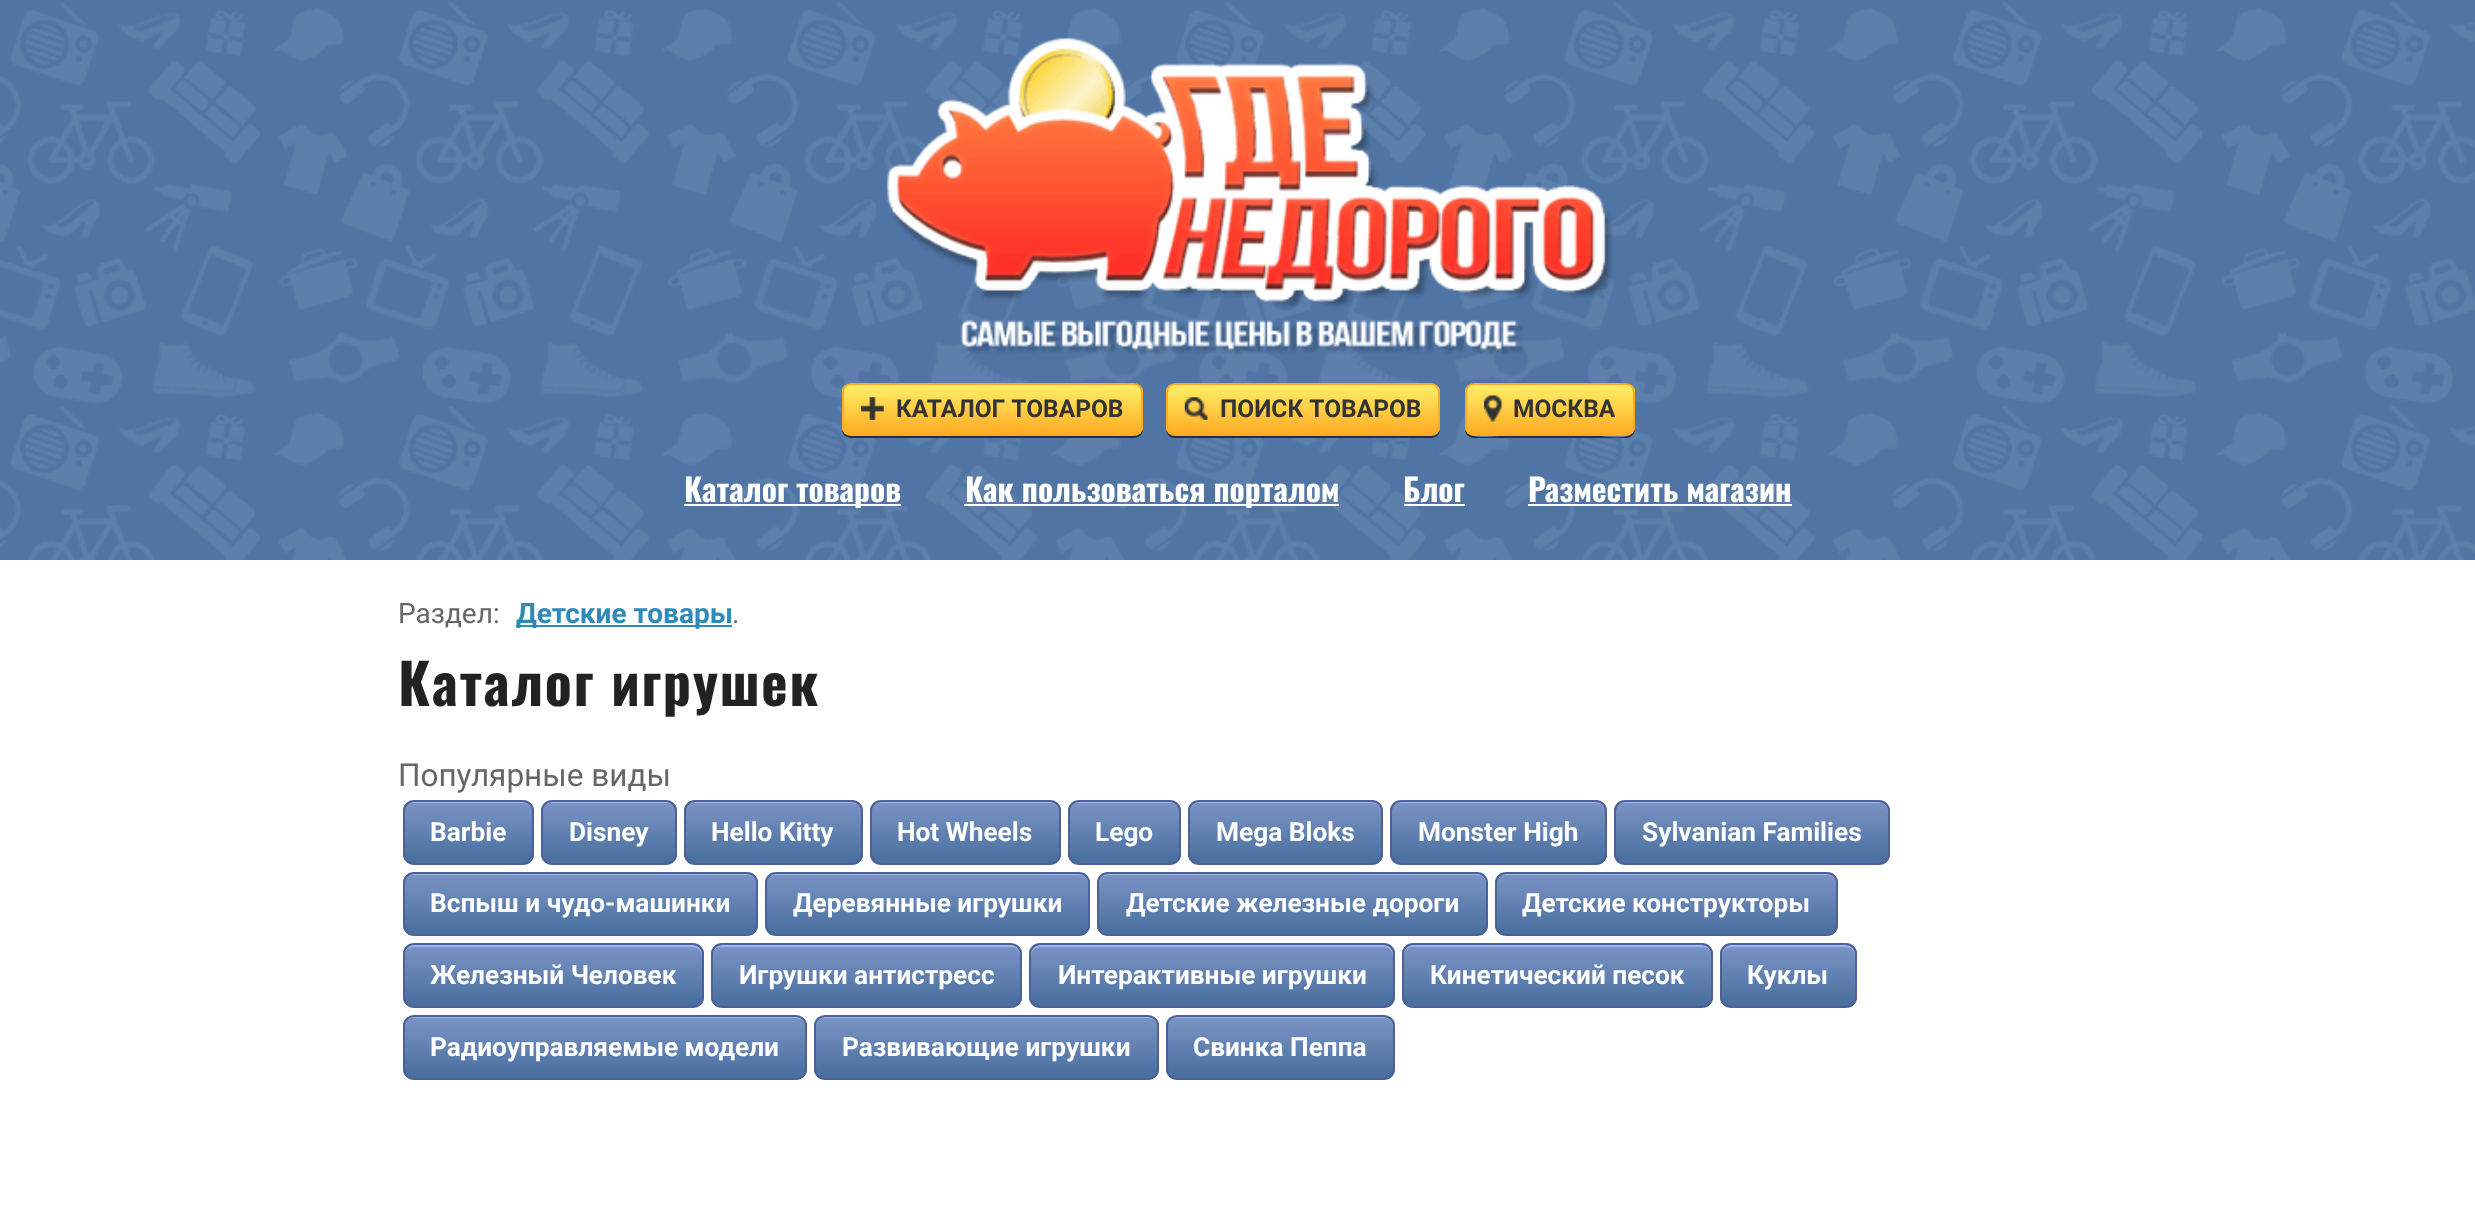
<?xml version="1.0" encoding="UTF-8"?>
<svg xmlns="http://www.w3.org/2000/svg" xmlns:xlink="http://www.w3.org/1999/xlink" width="2475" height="1225">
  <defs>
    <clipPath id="clip1"><rect x="842" y="383" width="301" height="53" rx="9" /></clipPath>
    <linearGradient id="g1" gradientUnits="userSpaceOnUse" x1="992" y1="385" x2="992" y2="434"><stop offset="0.05" stop-color="#ffec64" /><stop offset="1" stop-color="#ffab23" /></linearGradient>
    <clipPath id="clip2"><rect x="1166" y="383" width="274" height="53" rx="9" /></clipPath>
    <linearGradient id="g2" gradientUnits="userSpaceOnUse" x1="1303" y1="385" x2="1303" y2="434"><stop offset="0.05" stop-color="#ffec64" /><stop offset="1" stop-color="#ffab23" /></linearGradient>
    <clipPath id="clip3"><rect x="1465" y="383" width="170" height="53" rx="9" /></clipPath>
    <linearGradient id="g3" gradientUnits="userSpaceOnUse" x1="1550" y1="385" x2="1550" y2="434"><stop offset="0.05" stop-color="#ffec64" /><stop offset="1" stop-color="#ffab23" /></linearGradient>
    <clipPath id="clip4"><rect x="403" y="800" width="131" height="65" rx="11" /></clipPath>
    <linearGradient id="g4" gradientUnits="userSpaceOnUse" x1="468" y1="802" x2="468" y2="863"><stop offset="0.05" stop-color="#7892c2" /><stop offset="1" stop-color="#476e9e" /></linearGradient>
    <clipPath id="clip5"><rect x="541" y="800" width="136" height="65" rx="11" /></clipPath>
    <linearGradient id="g5" gradientUnits="userSpaceOnUse" x1="609" y1="802" x2="609" y2="863"><stop offset="0.05" stop-color="#7892c2" /><stop offset="1" stop-color="#476e9e" /></linearGradient>
    <clipPath id="clip6"><rect x="684" y="800" width="179" height="65" rx="11" /></clipPath>
    <linearGradient id="g6" gradientUnits="userSpaceOnUse" x1="774" y1="802" x2="774" y2="863"><stop offset="0.05" stop-color="#7892c2" /><stop offset="1" stop-color="#476e9e" /></linearGradient>
    <clipPath id="clip7"><rect x="870" y="800" width="191" height="65" rx="11" /></clipPath>
    <linearGradient id="g7" gradientUnits="userSpaceOnUse" x1="965" y1="802" x2="965" y2="863"><stop offset="0.05" stop-color="#7892c2" /><stop offset="1" stop-color="#476e9e" /></linearGradient>
    <clipPath id="clip8"><rect x="1068" y="800" width="113" height="65" rx="11" /></clipPath>
    <linearGradient id="g8" gradientUnits="userSpaceOnUse" x1="1124" y1="802" x2="1124" y2="863"><stop offset="0.05" stop-color="#7892c2" /><stop offset="1" stop-color="#476e9e" /></linearGradient>
    <clipPath id="clip9"><rect x="1188" y="800" width="195" height="65" rx="11" /></clipPath>
    <linearGradient id="g9" gradientUnits="userSpaceOnUse" x1="1285" y1="802" x2="1285" y2="863"><stop offset="0.05" stop-color="#7892c2" /><stop offset="1" stop-color="#476e9e" /></linearGradient>
    <clipPath id="clip10"><rect x="1390" y="800" width="217" height="65" rx="11" /></clipPath>
    <linearGradient id="g10" gradientUnits="userSpaceOnUse" x1="1498" y1="802" x2="1498" y2="863"><stop offset="0.05" stop-color="#7892c2" /><stop offset="1" stop-color="#476e9e" /></linearGradient>
    <clipPath id="clip11"><rect x="1614" y="800" width="276" height="65" rx="11" /></clipPath>
    <linearGradient id="g11" gradientUnits="userSpaceOnUse" x1="1752" y1="802" x2="1752" y2="863"><stop offset="0.05" stop-color="#7892c2" /><stop offset="1" stop-color="#476e9e" /></linearGradient>
    <clipPath id="clip12"><rect x="403" y="872" width="355" height="64" rx="11" /></clipPath>
    <linearGradient id="g12" gradientUnits="userSpaceOnUse" x1="580" y1="873" x2="580" y2="935"><stop offset="0.05" stop-color="#7892c2" /><stop offset="1" stop-color="#476e9e" /></linearGradient>
    <clipPath id="clip13"><rect x="765" y="872" width="325" height="64" rx="11" /></clipPath>
    <linearGradient id="g13" gradientUnits="userSpaceOnUse" x1="928" y1="873" x2="928" y2="935"><stop offset="0.05" stop-color="#7892c2" /><stop offset="1" stop-color="#476e9e" /></linearGradient>
    <clipPath id="clip14"><rect x="1097" y="872" width="391" height="64" rx="11" /></clipPath>
    <linearGradient id="g14" gradientUnits="userSpaceOnUse" x1="1292" y1="873" x2="1292" y2="935"><stop offset="0.05" stop-color="#7892c2" /><stop offset="1" stop-color="#476e9e" /></linearGradient>
    <clipPath id="clip15"><rect x="1495" y="872" width="343" height="64" rx="11" /></clipPath>
    <linearGradient id="g15" gradientUnits="userSpaceOnUse" x1="1666" y1="873" x2="1666" y2="935"><stop offset="0.05" stop-color="#7892c2" /><stop offset="1" stop-color="#476e9e" /></linearGradient>
    <clipPath id="clip16"><rect x="403" y="943" width="301" height="65" rx="11" /></clipPath>
    <linearGradient id="g16" gradientUnits="userSpaceOnUse" x1="553" y1="945" x2="553" y2="1006"><stop offset="0.05" stop-color="#7892c2" /><stop offset="1" stop-color="#476e9e" /></linearGradient>
    <clipPath id="clip17"><rect x="711" y="943" width="311" height="65" rx="11" /></clipPath>
    <linearGradient id="g17" gradientUnits="userSpaceOnUse" x1="866" y1="945" x2="866" y2="1006"><stop offset="0.05" stop-color="#7892c2" /><stop offset="1" stop-color="#476e9e" /></linearGradient>
    <clipPath id="clip18"><rect x="1029" y="943" width="366" height="65" rx="11" /></clipPath>
    <linearGradient id="g18" gradientUnits="userSpaceOnUse" x1="1212" y1="945" x2="1212" y2="1006"><stop offset="0.05" stop-color="#7892c2" /><stop offset="1" stop-color="#476e9e" /></linearGradient>
    <clipPath id="clip19"><rect x="1402" y="943" width="311" height="65" rx="11" /></clipPath>
    <linearGradient id="g19" gradientUnits="userSpaceOnUse" x1="1558" y1="945" x2="1558" y2="1006"><stop offset="0.05" stop-color="#7892c2" /><stop offset="1" stop-color="#476e9e" /></linearGradient>
    <clipPath id="clip20"><rect x="1720" y="943" width="137" height="65" rx="11" /></clipPath>
    <linearGradient id="g20" gradientUnits="userSpaceOnUse" x1="1789" y1="945" x2="1789" y2="1006"><stop offset="0.05" stop-color="#7892c2" /><stop offset="1" stop-color="#476e9e" /></linearGradient>
    <clipPath id="clip21"><rect x="403" y="1015" width="404" height="65" rx="11" /></clipPath>
    <linearGradient id="g21" gradientUnits="userSpaceOnUse" x1="605" y1="1017" x2="605" y2="1078"><stop offset="0.05" stop-color="#7892c2" /><stop offset="1" stop-color="#476e9e" /></linearGradient>
    <clipPath id="clip22"><rect x="814" y="1015" width="345" height="65" rx="11" /></clipPath>
    <linearGradient id="g22" gradientUnits="userSpaceOnUse" x1="986" y1="1017" x2="986" y2="1078"><stop offset="0.05" stop-color="#7892c2" /><stop offset="1" stop-color="#476e9e" /></linearGradient>
    <clipPath id="clip23"><rect x="1166" y="1015" width="229" height="65" rx="11" /></clipPath>
    <linearGradient id="g23" gradientUnits="userSpaceOnUse" x1="1280" y1="1017" x2="1280" y2="1078"><stop offset="0.05" stop-color="#7892c2" /><stop offset="1" stop-color="#476e9e" /></linearGradient>
  </defs>
  <rect width="100%" height="100%" fill="#ffffff" />
  <rect width="2475" height="2" fill="#5075a5" />
  <image x="0" y="2" width="2475" height="558" xlink:href="image1.png" />
  <image x="886" y="38" width="727" height="318" xlink:href="image2.png" />
  <path d="M 842 429 c 0 5 4 9 9 9 h 283 c 5 0 9 -4 9 -9 v -37 v 35 c 0 5 -4 9 -9 9 h -284 c -4 0 -7 -3 -8 -7 z" fill="#1f2f47" />
  <g clip-path="url(#clip1)">
    <rect x="842" y="385" width="301" height="49" fill="url(#g1)" />
  </g>
  <rect x="843" y="384" width="299" height="51" rx="8" fill="none" stroke="#ffaa22" stroke-width="2" />
  <image x="861" y="397" width="23" height="23" xlink:href="image3.png" />
  <path d="M 1166 430 c 1 5 4 8 9 8 h 256 c 5 0 9 -4 9 -9 c -1 4 -4 7 -8 7 h -258 c -3 0 -7 -3 -8 -6 z" fill="#1f2f47" />
  <g clip-path="url(#clip2)">
    <rect x="1166" y="385" width="274" height="49" fill="url(#g2)" />
  </g>
  <rect x="1167" y="384" width="272" height="51" rx="8" fill="none" stroke="#ffaa22" stroke-width="2" />
  <image x="1184" y="397" width="24" height="23" xlink:href="image4.png" />
  <path d="M 1465 429 c 0 5 4 9 9 9 h 152 c 5 0 9 -4 9 -9 v -35 l -1 -3 v 38 c -2 13 -30 7 -34 7 h -101 c -3 0 -31 5 -34 -7 z" fill="#1f2f47" />
  <g clip-path="url(#clip3)">
    <rect x="1465" y="385" width="170" height="49" fill="url(#g3)" />
  </g>
  <rect x="1466" y="384" width="168" height="51" rx="8" fill="none" stroke="#ffaa22" stroke-width="2" />
  <image x="1484" y="395" width="18" height="27" xlink:href="image5.png" />
  <rect x="684" y="504" width="217" height="2" fill="#ffffff" />
  <rect x="964" y="504" width="375" height="2" fill="#ffffff" />
  <rect x="1404" y="504" width="61" height="2" fill="#ffffff" />
  <rect x="1528" y="504" width="264" height="2" fill="#ffffff" />
  <rect x="516" y="625" width="216" height="2" fill="#2e8bb9" />
  <g clip-path="url(#clip4)">
    <rect x="403" y="802" width="131" height="61" fill="url(#g4)" />
  </g>
  <path d="M 413 803 h 110 c 5 0 9 4 9 9 c 0 -14 -18 -10 -27 -10 h -74 c -9 0 -27 -4 -27 10 c 0 -5 4 -9 9 -9 z" fill="#9fb4f2" />
  <rect x="404" y="801" width="129" height="63" rx="10" fill="none" stroke="#4e6096" stroke-width="2" />
  <g clip-path="url(#clip5)">
    <rect x="541" y="802" width="136" height="61" fill="url(#g5)" />
  </g>
  <path d="M 551 803 h 116 c 5 0 9 4 9 9 v -1 c 0 -5 -4 -9 -9 -9 h -115 c -3 0 -5 1 -7 3 c 2 -1 4 -2 6 -2 z" fill="#9fb4f2" />
  <rect x="542" y="801" width="134" height="63" rx="10" fill="none" stroke="#4e6096" stroke-width="2" />
  <g clip-path="url(#clip6)">
    <rect x="684" y="802" width="179" height="61" fill="url(#g6)" />
  </g>
  <path d="M 695 803 h 157 c 5 0 9 4 9 9 c 0 -16 -28 -10 -35 -10 h -105 c -7 0 -35 -6 -35 10 c 0 -5 4 -9 9 -9 z" fill="#9fb4f2" />
  <rect x="685" y="801" width="177" height="63" rx="10" fill="none" stroke="#4e6096" stroke-width="2" />
  <g clip-path="url(#clip7)">
    <rect x="870" y="802" width="191" height="61" fill="url(#g7)" />
  </g>
  <path d="M 880 803 h 170 c 5 0 9 4 9 9 v -1 c 0 -5 -4 -9 -9 -9 h -169 c -5 0 -9 4 -9 9 v 1 c 0 -5 3 -9 8 -9 z" fill="#9fb4f2" />
  <rect x="871" y="801" width="189" height="63" rx="10" fill="none" stroke="#4e6096" stroke-width="2" />
  <g clip-path="url(#clip8)">
    <rect x="1068" y="802" width="113" height="61" fill="url(#g8)" />
  </g>
  <path d="M 1078 803 h 93 c 5 0 9 4 9 9 c 0 -14 -16 -10 -24 -10 h -62 c -9 0 -25 -4 -25 10 c 0 -5 4 -9 9 -9 z" fill="#9fb4f2" />
  <rect x="1069" y="801" width="111" height="63" rx="10" fill="none" stroke="#4e6096" stroke-width="2" />
  <g clip-path="url(#clip9)">
    <rect x="1188" y="802" width="195" height="61" fill="url(#g9)" />
  </g>
  <path d="M 1199 803 h 173 c 5 0 9 4 9 9 v -1 c 0 -5 -4 -9 -9 -9 h -173 c -5 0 -9 4 -9 9 v 1 c 0 -5 4 -9 9 -9 z" fill="#9fb4f2" />
  <rect x="1189" y="801" width="193" height="63" rx="10" fill="none" stroke="#4e6096" stroke-width="2" />
  <g clip-path="url(#clip10)">
    <rect x="1390" y="802" width="217" height="61" fill="url(#g10)" />
  </g>
  <path d="M 1400 803 h 196 c 5 0 9 4 9 9 v -1 c 0 -5 -4 -9 -9 -9 h -196 c -5 0 -9 4 -9 9 v 1 c 0 -5 4 -9 9 -9 z" fill="#9fb4f2" />
  <rect x="1391" y="801" width="215" height="63" rx="10" fill="none" stroke="#4e6096" stroke-width="2" />
  <g clip-path="url(#clip11)">
    <rect x="1614" y="802" width="276" height="61" fill="url(#g11)" />
  </g>
  <path d="M 1624 803 h 256 c 4 0 8 4 8 9 v -1 c 0 -5 -4 -9 -9 -9 h -255 c -5 0 -9 4 -9 9 v 1 c 0 -5 4 -9 9 -9 z" fill="#9fb4f2" />
  <rect x="1615" y="801" width="274" height="63" rx="10" fill="none" stroke="#4e6096" stroke-width="2" />
  <g clip-path="url(#clip12)">
    <rect x="403" y="873" width="355" height="62" fill="url(#g12)" />
  </g>
  <path d="M 413 875 h 334 c 5 0 9 4 9 9 c 0 -5 -2 -10 -7 -11 h -338 c -5 1 -7 6 -7 11 c 0 -5 4 -9 9 -9 z" fill="#9fb4f2" />
  <rect x="404" y="873" width="353" height="62" rx="10" fill="none" stroke="#4e6096" stroke-width="2" />
  <g clip-path="url(#clip13)">
    <rect x="765" y="873" width="325" height="62" fill="url(#g13)" />
  </g>
  <path d="M 775 875 h 305 c 5 0 8 4 8 9 v 44 l -1 3 c 1 -1 2 -3 2 -5 v -44 c 0 -5 -4 -9 -9 -9 h -304 c -4 0 -7 2 -8 6 c 1 -2 4 -4 7 -4 z" fill="#9fb4f2" />
  <rect x="766" y="873" width="323" height="62" rx="10" fill="none" stroke="#4e6096" stroke-width="2" />
  <g clip-path="url(#clip14)">
    <rect x="1097" y="873" width="391" height="62" fill="url(#g14)" />
  </g>
  <path d="M 1108 875 h 369 c 5 0 9 4 9 9 v -2 c 0 -5 -4 -9 -9 -9 h -369 c -5 0 -9 4 -9 9 v 2 c 0 -5 4 -9 9 -9 z" fill="#9fb4f2" />
  <rect x="1098" y="873" width="389" height="62" rx="10" fill="none" stroke="#4e6096" stroke-width="2" />
  <g clip-path="url(#clip15)">
    <rect x="1495" y="873" width="343" height="62" fill="url(#g15)" />
  </g>
  <path d="M 1505 875 h 322 c 5 0 9 4 9 9 c 0 -5 -2 -10 -7 -11 h -326 c -5 1 -7 6 -7 11 c 0 -5 4 -9 9 -9 z" fill="#9fb4f2" />
  <rect x="1496" y="873" width="341" height="62" rx="10" fill="none" stroke="#4e6096" stroke-width="2" />
  <g clip-path="url(#clip16)">
    <rect x="403" y="945" width="301" height="61" fill="url(#g16)" />
  </g>
  <path d="M 413 947 h 280 c 5 0 9 4 9 9 v -2 c 0 -5 -4 -9 -9 -9 h -280 c -5 0 -9 4 -9 9 v 2 c 0 -5 4 -9 9 -9 z" fill="#9fb4f2" />
  <rect x="404" y="944" width="299" height="63" rx="10" fill="none" stroke="#4e6096" stroke-width="2" />
  <g clip-path="url(#clip17)">
    <rect x="711" y="945" width="311" height="61" fill="url(#g17)" />
  </g>
  <path d="M 721 947 h 291 c 4 0 8 4 8 9 v -2 c 0 -5 -4 -9 -9 -9 h -290 c -5 0 -9 4 -9 9 v 2 c 0 -5 4 -9 9 -9 z" fill="#9fb4f2" />
  <rect x="712" y="944" width="309" height="63" rx="10" fill="none" stroke="#4e6096" stroke-width="2" />
  <g clip-path="url(#clip18)">
    <rect x="1029" y="945" width="366" height="61" fill="url(#g18)" />
  </g>
  <path d="M 1040 947 h 344 c 5 0 9 4 9 9 v -2 c 0 -5 -4 -9 -9 -9 h -344 c -5 0 -9 4 -9 9 v 2 c 0 -5 4 -9 9 -9 z" fill="#9fb4f2" />
  <rect x="1030" y="944" width="364" height="63" rx="10" fill="none" stroke="#4e6096" stroke-width="2" />
  <g clip-path="url(#clip19)">
    <rect x="1402" y="945" width="311" height="61" fill="url(#g19)" />
  </g>
  <path d="M 1412 947 h 291 c 5 0 9 4 9 9 v -2 c 0 -5 -4 -9 -9 -9 h -290 c -5 0 -9 4 -9 9 v 2 c 0 -5 3 -9 8 -9 z" fill="#9fb4f2" />
  <rect x="1403" y="944" width="309" height="63" rx="10" fill="none" stroke="#4e6096" stroke-width="2" />
  <g clip-path="url(#clip20)">
    <rect x="1720" y="945" width="137" height="61" fill="url(#g20)" />
  </g>
  <path d="M 1731 947 h 115 c 5 0 9 4 9 9 c 0 -16 -17 -11 -28 -11 h -77 c -11 0 -28 -5 -28 11 c 0 -5 4 -9 9 -9 z" fill="#9fb4f2" />
  <rect x="1721" y="944" width="135" height="63" rx="10" fill="none" stroke="#4e6096" stroke-width="2" />
  <g clip-path="url(#clip21)">
    <rect x="403" y="1017" width="404" height="61" fill="url(#g21)" />
  </g>
  <path d="M 413 1018 h 383 c 5 0 9 4 9 9 c 0 -5 -3 -10 -9 -10 h -383 c -6 0 -9 5 -9 10 c 0 -5 4 -9 9 -9 z" fill="#9fb4f2" />
  <rect x="404" y="1016" width="402" height="63" rx="10" fill="none" stroke="#4e6096" stroke-width="2" />
  <g clip-path="url(#clip22)">
    <rect x="814" y="1017" width="345" height="61" fill="url(#g22)" />
  </g>
  <path d="M 824 1018 h 324 c 5 0 9 4 9 9 v -1 c 0 -5 -4 -9 -9 -9 h -323 c -5 0 -9 4 -9 9 v 1 c 0 -5 3 -9 8 -9 z" fill="#9fb4f2" />
  <rect x="815" y="1016" width="343" height="63" rx="10" fill="none" stroke="#4e6096" stroke-width="2" />
  <g clip-path="url(#clip23)">
    <rect x="1166" y="1017" width="229" height="61" fill="url(#g23)" />
  </g>
  <path d="M 1176 1018 h 208 c 5 0 9 4 9 9 v -1 c 0 -5 -4 -9 -9 -9 h -208 c -5 0 -9 4 -9 9 v 1 c 0 -5 4 -9 9 -9 z" fill="#9fb4f2" />
  <rect x="1167" y="1016" width="227" height="63" rx="10" fill="none" stroke="#4e6096" stroke-width="2" />
  <text x="896" y="417" style="font-family: Roboto; font-size: 24.5px; font-weight: bold; fill: #333333">КАТАЛОГ ТОВАРОВ</text>
  <text x="1220" y="417" style="font-family: Roboto; font-size: 24.5px; font-weight: bold; fill: #333333">ПОИСК ТОВАРОВ</text>
  <text x="1513" y="417" style="font-family: Roboto; font-size: 24.5px; font-weight: bold; fill: #333333">МОСКВА</text>
  <text x="684" y="502" style="font-family: Oswald; font-size: 31.5px; font-weight: bold; fill: #ffffff">Каталог товаров</text>
  <text x="965" y="502" style="font-family: Oswald; font-size: 31.5px; font-weight: bold; fill: #ffffff">Как пользоваться порталом</text>
  <text x="1403" y="502" style="font-family: Oswald; font-size: 31.5px; font-weight: bold; fill: #ffffff">Блог</text>
  <text x="1528" y="502" style="font-family: Oswald; font-size: 31.5px; font-weight: bold; fill: #ffffff">Разместить магазин</text>
  <text x="398" y="623" style="font-family: Roboto; font-size: 28px; fill: #666666">Раздел:</text>
  <text x="516" y="623" style="font-family: Roboto; font-size: 28px; font-weight: bold; fill: #2e8bb9">Детские товары</text>
  <text x="732" y="623" style="font-family: Roboto; font-size: 28px; fill: #666666">.</text>
  <text x="398" y="706" style="font-family: Oswald; font-size: 56px; font-weight: bold; letter-spacing: 1.75px; fill: #222222">Каталог игрушек</text>
  <text x="398" y="786" style="font-family: Roboto; font-size: 31.5px; fill: #666666">Популярные виды</text>
  <text x="430" y="841" style="font-family: Roboto; font-size: 26.25px; font-weight: bold; fill: #ffffff">Barbie</text>
  <text x="569" y="841" style="font-family: Roboto; font-size: 26.25px; font-weight: bold; fill: #ffffff">Disney</text>
  <text x="711" y="841" style="font-family: Roboto; font-size: 26.25px; font-weight: bold; fill: #ffffff">Hello Kitty</text>
  <text x="897" y="841" style="font-family: Roboto; font-size: 26.25px; font-weight: bold; fill: #ffffff">Hot Wheels</text>
  <text x="1095" y="841" style="font-family: Roboto; font-size: 26.25px; font-weight: bold; fill: #ffffff">Lego</text>
  <text x="1216" y="841" style="font-family: Roboto; font-size: 26.25px; font-weight: bold; fill: #ffffff">Mega Bloks</text>
  <text x="1418" y="841" style="font-family: Roboto; font-size: 26.25px; font-weight: bold; fill: #ffffff">Monster High</text>
  <text x="1642" y="841" style="font-family: Roboto; font-size: 26.25px; font-weight: bold; fill: #ffffff">Sylvanian Families</text>
  <text x="430" y="912" style="font-family: Roboto; font-size: 26.25px; font-weight: bold; fill: #ffffff">Вспыш и чудо-машинки</text>
  <text x="793" y="912" style="font-family: Roboto; font-size: 26.25px; font-weight: bold; fill: #ffffff">Деревянные игрушки</text>
  <text x="1126" y="912" style="font-family: Roboto; font-size: 26.25px; font-weight: bold; fill: #ffffff">Детские железные дороги</text>
  <text x="1522" y="912" style="font-family: Roboto; font-size: 26.25px; font-weight: bold; fill: #ffffff">Детские конструкторы</text>
  <text x="430" y="984" style="font-family: Roboto; font-size: 26.25px; font-weight: bold; fill: #ffffff">Железный Человек</text>
  <text x="739" y="984" style="font-family: Roboto; font-size: 26.25px; font-weight: bold; fill: #ffffff">Игрушки антистресс</text>
  <text x="1058" y="984" style="font-family: Roboto; font-size: 26.25px; font-weight: bold; fill: #ffffff">Интерактивные игрушки</text>
  <text x="1430" y="984" style="font-family: Roboto; font-size: 26.25px; font-weight: bold; fill: #ffffff">Кинетический песок</text>
  <text x="1747" y="984" style="font-family: Roboto; font-size: 26.25px; font-weight: bold; fill: #ffffff">Куклы</text>
  <text x="430" y="1056" style="font-family: Roboto; font-size: 26.25px; font-weight: bold; fill: #ffffff">Радиоуправляемые модели</text>
  <text x="842" y="1056" style="font-family: Roboto; font-size: 26.25px; font-weight: bold; fill: #ffffff">Развивающие игрушки</text>
  <text x="1193" y="1056" style="font-family: Roboto; font-size: 26.25px; font-weight: bold; fill: #ffffff">Свинка Пеппа</text>
</svg>
